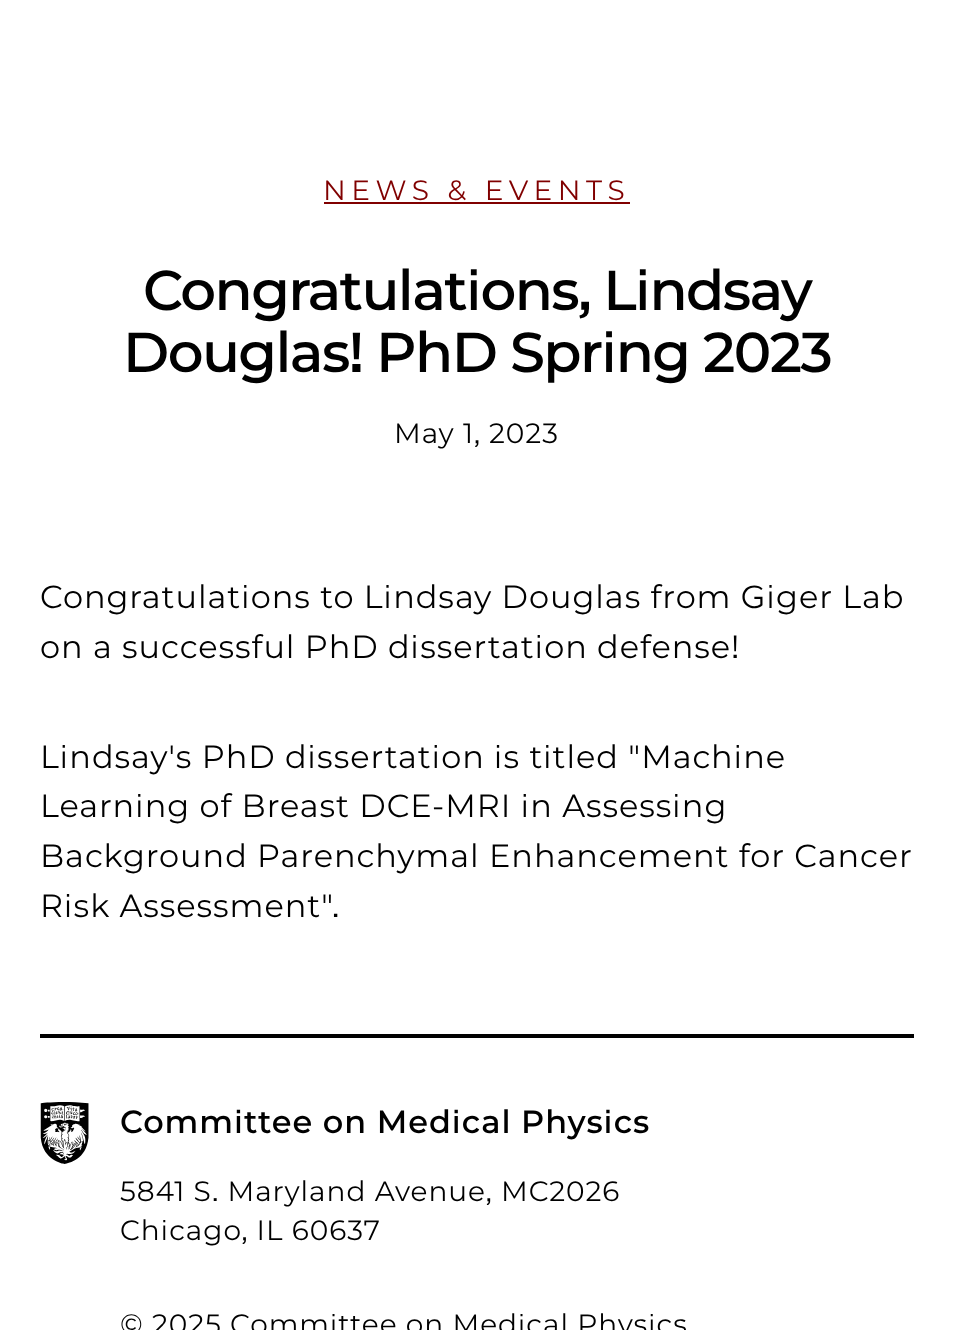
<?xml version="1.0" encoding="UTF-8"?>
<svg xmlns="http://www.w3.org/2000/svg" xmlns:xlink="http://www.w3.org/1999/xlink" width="954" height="1330">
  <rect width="100%" height="100%" fill="#ffffff" />
  <rect x="324" y="202" width="306" height="2" fill="#800000" />
  <rect x="40" y="1034" width="874" height="4" fill="#000000" />
  <image x="40" y="1102" width="49" height="62" xlink:href="image1.png" />
  <text x="323" y="200" style="font-family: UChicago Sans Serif; font-size: 28px; letter-spacing: 5.6px; fill: #800000">NEWS &amp; EVENTS</text>
  <text x="143" y="310" style="font-family: UChicago Sans Serif; font-size: 56px; font-weight: 600; letter-spacing: -1.6px; fill: #000000">Congratulations, Lindsay</text>
  <text x="123" y="372" style="font-family: UChicago Sans Serif; font-size: 56px; font-weight: 600; letter-spacing: -1.6px; fill: #000000">Douglas! PhD Spring 2023</text>
  <text x="394" y="443" style="font-family: UChicago Sans Serif; font-size: 28px; letter-spacing: 0.95px; fill: #000000">May 1, 2023</text>
  <text x="40" y="608" style="font-family: UChicago Sans Serif; font-size: 32px; letter-spacing: 0.95px; fill: #000000">Congratulations to Lindsay Douglas from Giger Lab</text>
  <text x="40" y="658" style="font-family: UChicago Sans Serif; font-size: 32px; letter-spacing: 0.95px; fill: #000000">on a successful PhD dissertation defense!</text>
  <text x="40" y="768" style="font-family: UChicago Sans Serif; font-size: 32px; letter-spacing: 0.95px; fill: #000000">Lindsay's PhD dissertation is titled "Machine</text>
  <text x="40" y="817" style="font-family: UChicago Sans Serif; font-size: 32px; letter-spacing: 0.95px; fill: #000000">Learning of Breast DCE-MRI in Assessing</text>
  <text x="40" y="867" style="font-family: UChicago Sans Serif; font-size: 32px; letter-spacing: 0.95px; fill: #000000">Background Parenchymal Enhancement for Cancer</text>
  <text x="40" y="917" style="font-family: UChicago Sans Serif; font-size: 32px; letter-spacing: 0.95px; fill: #000000">Risk Assessment".</text>
  <text x="120" y="1133" style="font-family: UChicago Sans Serif; font-size: 32px; font-weight: 600; letter-spacing: 0.95px; fill: #000000">Committee on Medical Physics</text>
  <text x="120" y="1201" style="font-family: UChicago Sans Serif; font-size: 28px; letter-spacing: 0.95px; fill: #000000">5841 S. Maryland Avenue, MC2026</text>
  <text x="120" y="1240" style="font-family: UChicago Sans Serif; font-size: 28px; letter-spacing: 0.95px; fill: #000000">Chicago, IL 60637</text>
  <text x="120" y="1334" style="font-family: UChicago Sans Serif; font-size: 28px; letter-spacing: 0.95px; fill: #000000">© 2025 Committee on Medical Physics</text>
</svg>
